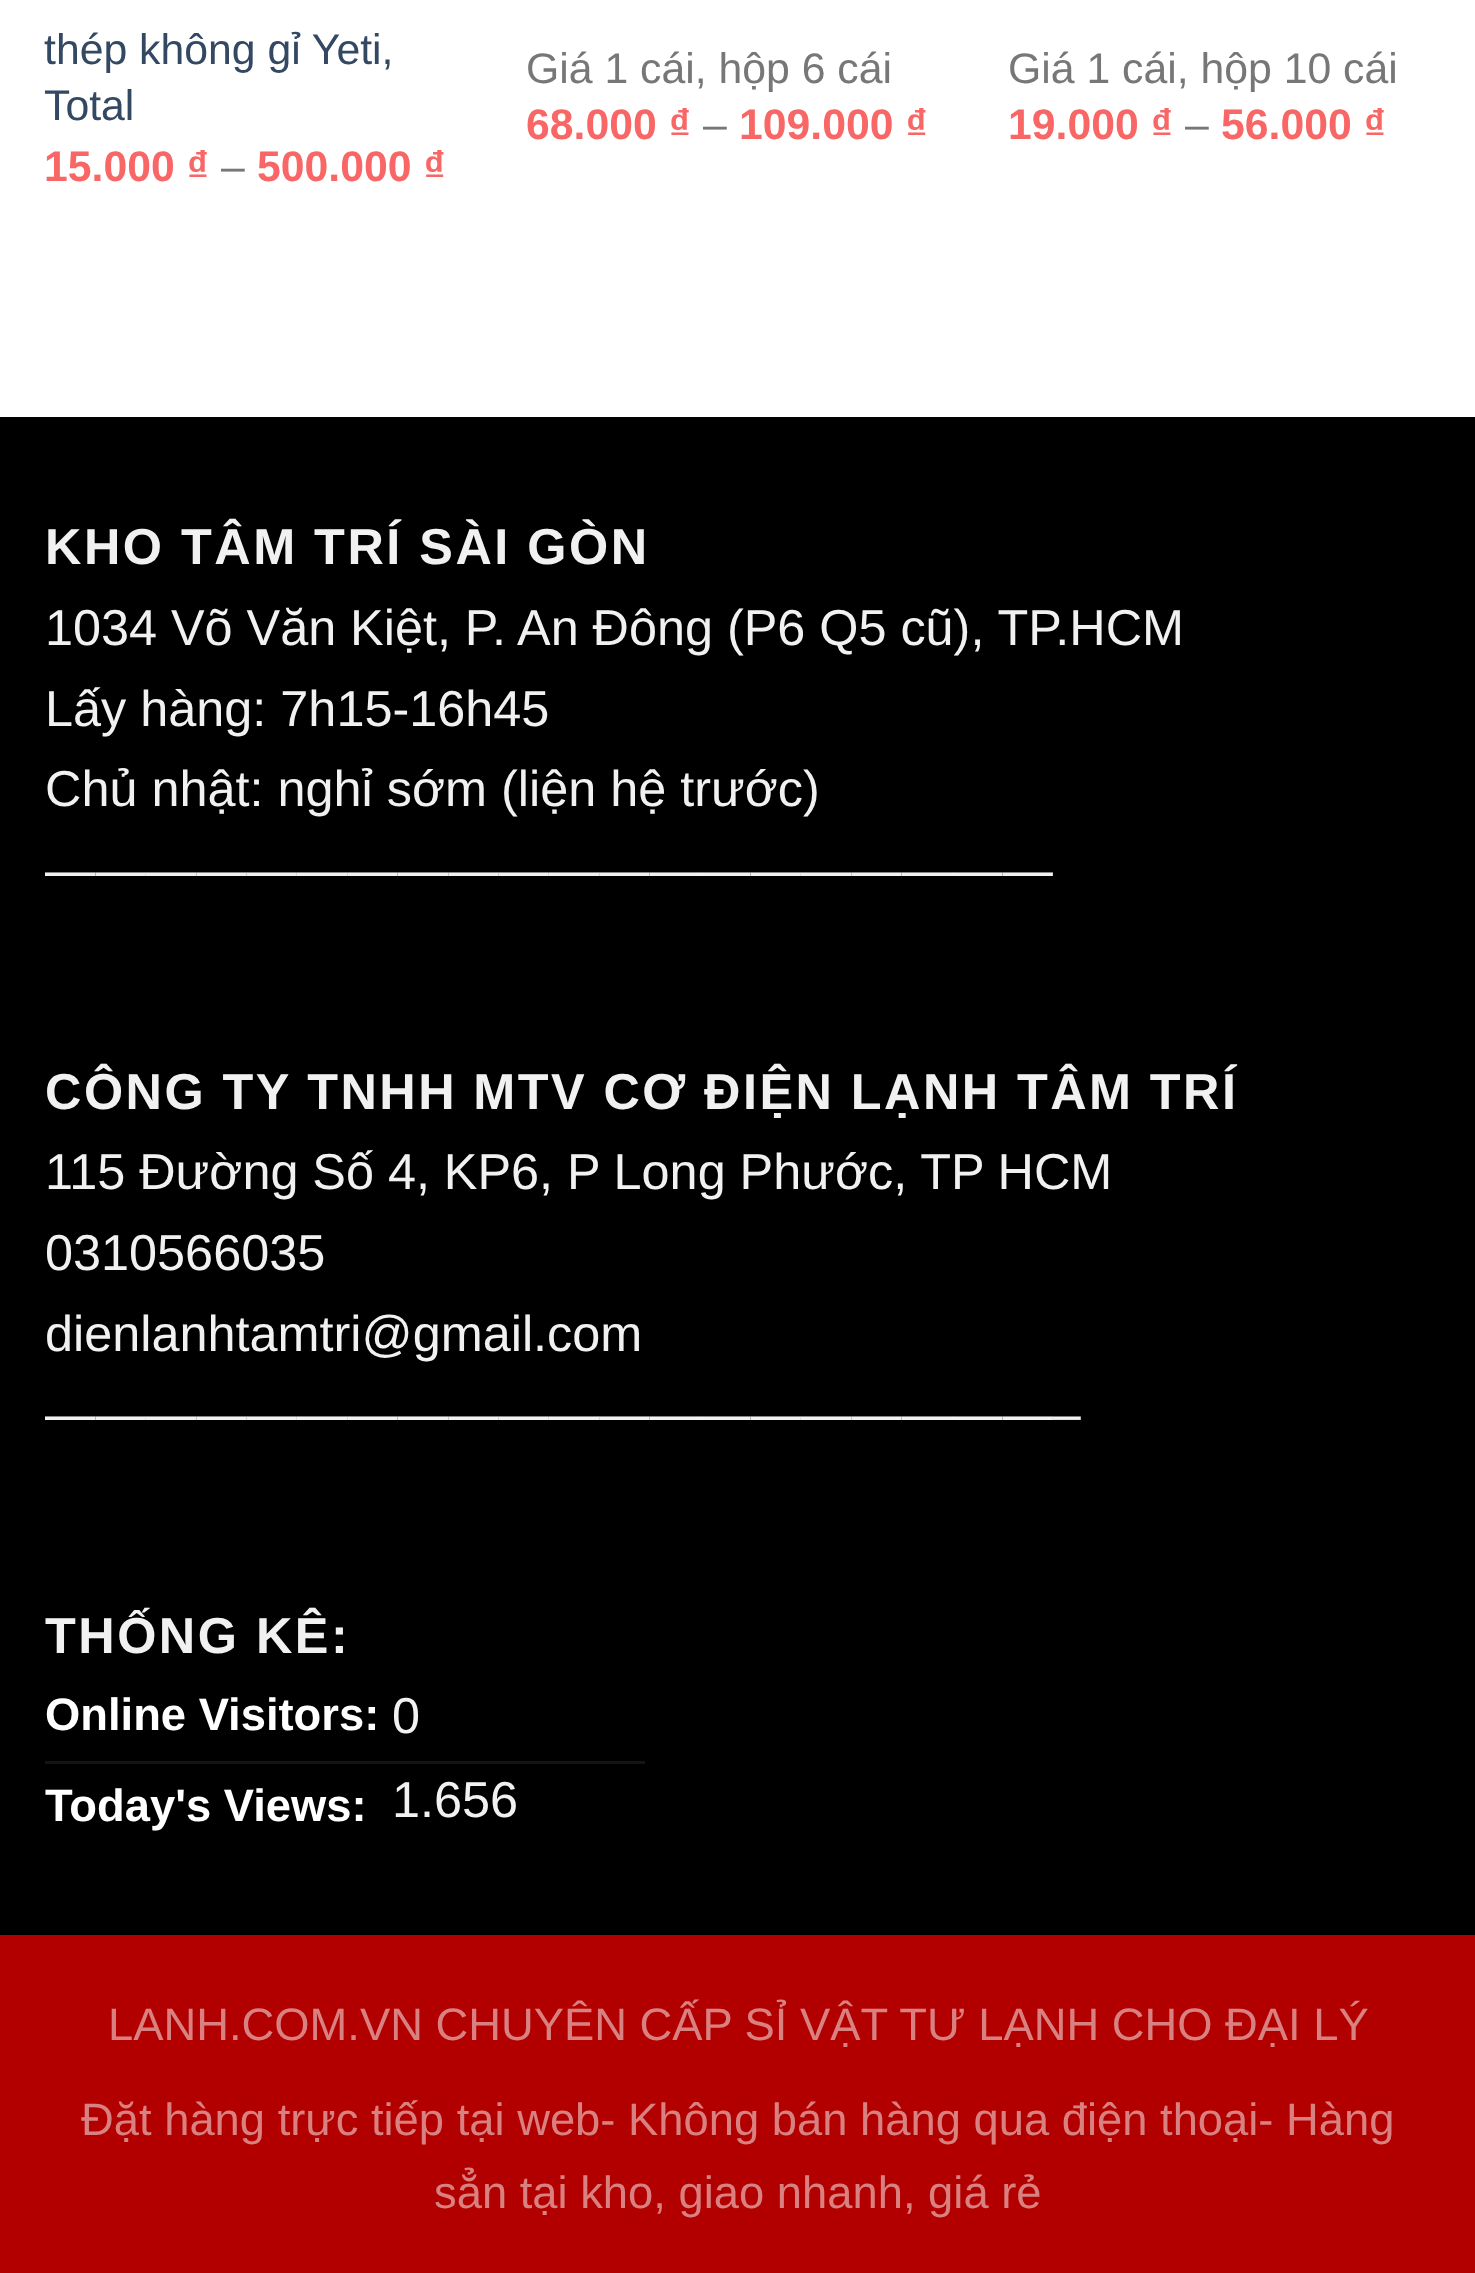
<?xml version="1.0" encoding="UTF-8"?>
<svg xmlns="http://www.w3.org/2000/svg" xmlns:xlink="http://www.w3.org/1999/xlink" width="1475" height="2273">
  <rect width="100%" height="100%" fill="#ffffff" />
  <rect y="417" width="1475" height="1518" fill="#000000" />
  <rect x="45" y="1761" width="600" height="3" fill="#141414" />
  <rect y="1935" width="1475" height="338" fill="#b20000" />
  <text x="44" y="64" style="font-family: Liberation Sans; font-size: 42.75px; fill: #334862">thép không gỉ Yeti,</text>
  <text x="44" y="120" style="font-family: Liberation Sans; font-size: 42.75px; fill: #334862">Total</text>
  <text x="44" y="181" style="font-family: Liberation Sans; font-size: 42.75px; font-weight: bold; fill: #f86666">15.000 ₫</text>
  <text x="221" y="181" style="font-family: Liberation Sans; font-size: 42.75px; fill: #777777">–</text>
  <text x="257" y="181" style="font-family: Liberation Sans; font-size: 42.75px; font-weight: bold; fill: #f86666">500.000 ₫</text>
  <text x="526" y="83" style="font-family: Liberation Sans; font-size: 42.75px; fill: #777777">Giá 1 cái, hộp 6 cái</text>
  <text x="526" y="139" style="font-family: Liberation Sans; font-size: 42.75px; font-weight: bold; fill: #f86666">68.000 ₫</text>
  <text x="703" y="139" style="font-family: Liberation Sans; font-size: 42.75px; fill: #777777">–</text>
  <text x="739" y="139" style="font-family: Liberation Sans; font-size: 42.75px; font-weight: bold; fill: #f86666">109.000 ₫</text>
  <text x="1008" y="83" style="font-family: Liberation Sans; font-size: 42.75px; fill: #777777">Giá 1 cái, hộp 10 cái</text>
  <text x="1008" y="139" style="font-family: Liberation Sans; font-size: 42.75px; font-weight: bold; fill: #f86666">19.000 ₫</text>
  <text x="1185" y="139" style="font-family: Liberation Sans; font-size: 42.75px; fill: #777777">–</text>
  <text x="1221" y="139" style="font-family: Liberation Sans; font-size: 42.75px; font-weight: bold; fill: #f86666">56.000 ₫</text>
  <text x="45" y="564" style="font-family: Liberation Sans; font-size: 50.4px; font-weight: bold; letter-spacing: 2.5px; fill: #f1f1f1">KHO TÂM TRÍ SÀI GÒN</text>
  <text x="45" y="645" word-spacing="-0.1" style="font-family: Liberation Sans; font-size: 50.4px; fill: #f1f1f1">1034 Võ Văn Kiệt, P. An Đông (P6 Q5 cũ), TP.HCM</text>
  <text x="45" y="726" style="font-family: Liberation Sans; font-size: 50.4px; fill: #f1f1f1">Lấy hàng: 7h15-16h45</text>
  <text x="45" y="806" style="font-family: Liberation Sans; font-size: 50.4px; fill: #f1f1f1">Chủ nhật: nghỉ sớm (liện hệ trước)</text>
  <text x="45" y="887" style="font-family: Liberation Sans; font-size: 50.4px; fill: #f1f1f1">————————————————————</text>
  <text x="45" y="1109" word-spacing="-0.25" style="font-family: Liberation Sans; font-size: 50.4px; font-weight: bold; letter-spacing: 2.5px; fill: #f1f1f1">CÔNG TY TNHH MTV CƠ ĐIỆN LẠNH TÂM TRÍ</text>
  <text x="45" y="1189" word-spacing="-0.1" style="font-family: Liberation Sans; font-size: 50.4px; fill: #f1f1f1">115 Đường Số 4, KP6, P Long Phước, TP HCM</text>
  <text x="45" y="1270" style="font-family: Liberation Sans; font-size: 50.4px; fill: #f1f1f1">0310566035</text>
  <text x="45" y="1351" style="font-family: Liberation Sans; font-size: 50.4px; fill: #f1f1f1">dienlanhtamtri@gmail.com</text>
  <text x="45" y="1431" style="font-family: Liberation Sans; font-size: 50.4px; fill: #f1f1f1">————————————————————–</text>
  <text x="45" y="1653" style="font-family: Liberation Sans; font-size: 50.4px; font-weight: bold; letter-spacing: 2.5px; fill: #f1f1f1">THỐNG KÊ:</text>
  <text x="45" y="1730" style="font-family: Liberation Sans; font-size: 45.35px; font-weight: bold; fill: #ffffff">Online Visitors:</text>
  <text x="392" y="1733" style="font-family: Liberation Sans; font-size: 50.4px; fill: #f1f1f1">0</text>
  <text x="45" y="1821" style="font-family: Liberation Sans; font-size: 45.35px; font-weight: bold; fill: #ffffff">Today's Views:</text>
  <text x="392" y="1817" style="font-family: Liberation Sans; font-size: 50.4px; fill: #f1f1f1">1.656</text>
  <text x="108" y="2040" style="font-family: Liberation Sans; font-size: 45.35px; fill: #d98080">LANH.COM.VN CHUYÊN CẤP SỈ VẬT TƯ LẠNH CHO ĐẠI LÝ</text>
  <text x="81" y="2135" style="font-family: Liberation Sans; font-size: 45.35px; fill: #d98080">Đặt hàng trực tiếp tại web- Không bán hàng qua điện thoại- Hàng</text>
  <text x="434" y="2208" style="font-family: Liberation Sans; font-size: 45.35px; fill: #d98080">sẳn tại kho, giao nhanh, giá rẻ</text>
</svg>
